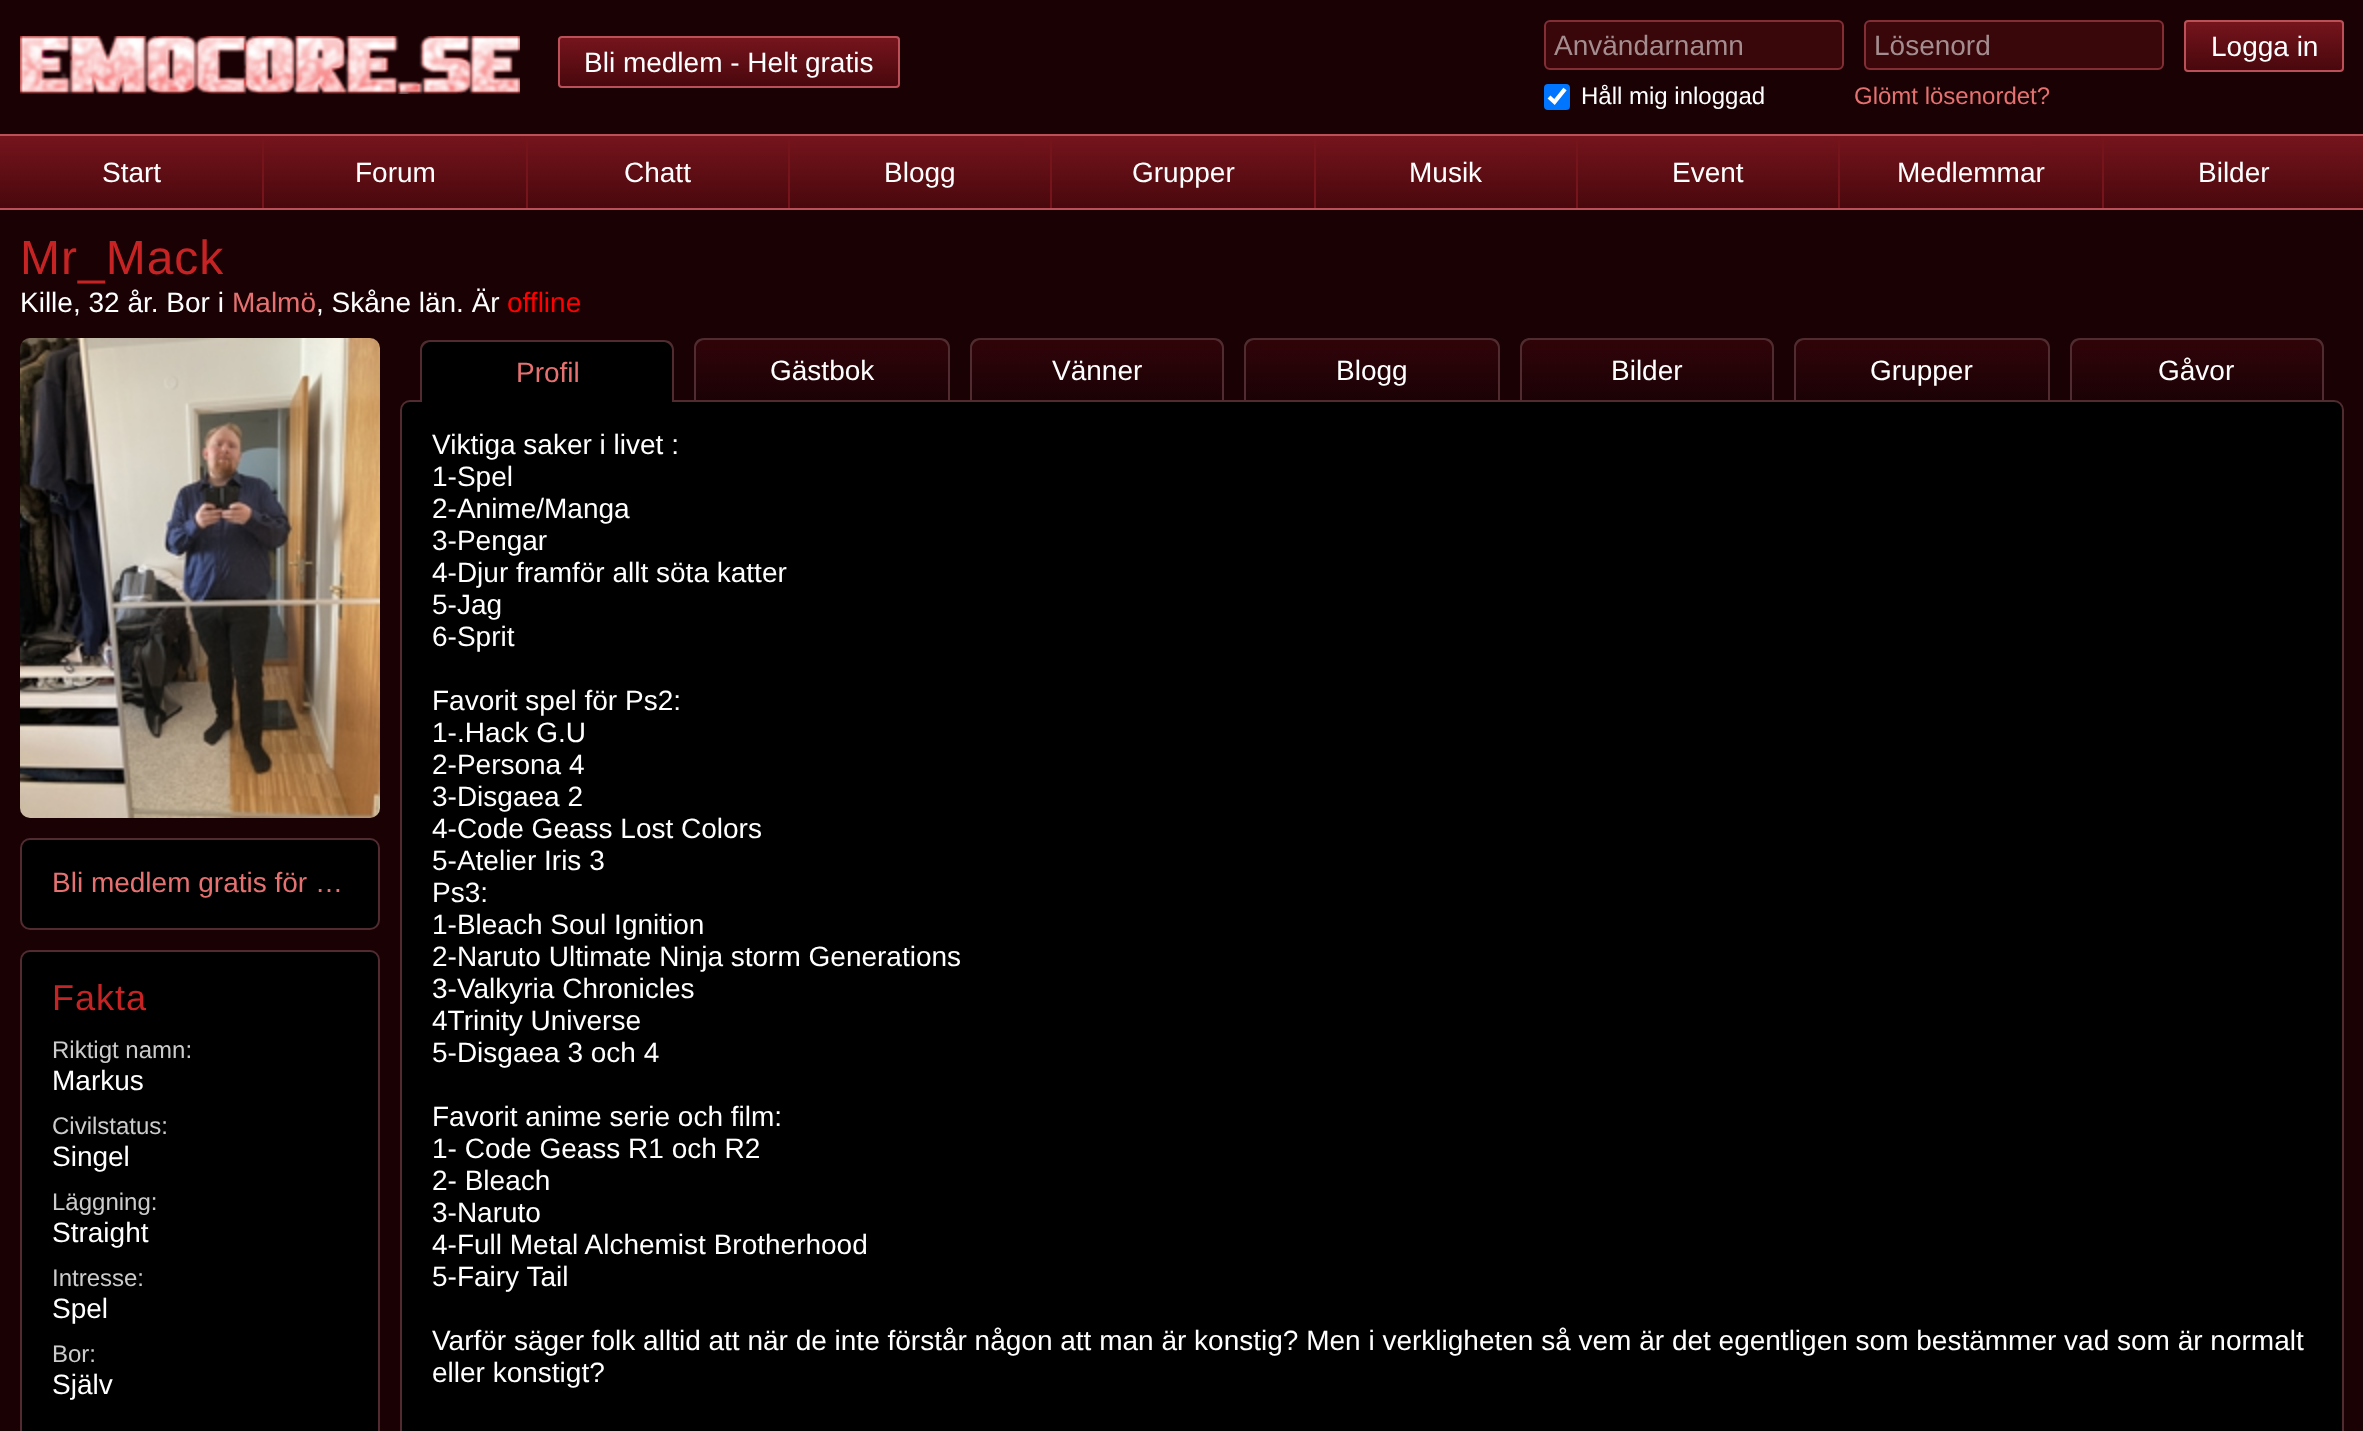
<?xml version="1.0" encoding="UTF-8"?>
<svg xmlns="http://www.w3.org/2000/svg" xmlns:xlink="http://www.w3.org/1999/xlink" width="2363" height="1431">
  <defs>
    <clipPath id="clip1"><rect x="558" y="36" width="342" height="52" rx="4" /></clipPath>
    <linearGradient id="g1" gradientUnits="userSpaceOnUse" x1="729" y1="38" x2="729" y2="86"><stop offset="0" stop-color="#76141c" /><stop offset="1" stop-color="#48080d" /></linearGradient>
    <clipPath id="clip2"><rect x="2184" y="20" width="160" height="52" rx="4" /></clipPath>
    <linearGradient id="g2" gradientUnits="userSpaceOnUse" x1="2264" y1="22" x2="2264" y2="70"><stop offset="0" stop-color="#76141c" /><stop offset="1" stop-color="#48080d" /></linearGradient>
    <linearGradient id="g3" gradientUnits="userSpaceOnUse" x1="1182" y1="136" x2="1182" y2="208"><stop offset="0" stop-color="#76141c" /><stop offset="1" stop-color="#48080d" /></linearGradient>
    <clipPath id="clip3"><path d="M 704 338 h 236 c 5.5 0 10 4.5 10 10 v 52 h -256 v -52 c 0 -5.5 4.5 -10 10 -10 z" /></clipPath>
    <linearGradient id="g4" gradientUnits="userSpaceOnUse" x1="822" y1="340" x2="822" y2="400"><stop offset="0" stop-color="#300409" /><stop offset="1" stop-color="#1b0205" /></linearGradient>
    <clipPath id="clip4"><path d="M 980 338 h 234 c 5.5 0 10 4.5 10 10 v 52 h -254 v -52 c 0 -5.5 4.5 -10 10 -10 z" /></clipPath>
    <linearGradient id="g5" gradientUnits="userSpaceOnUse" x1="1097" y1="340" x2="1097" y2="400"><stop offset="0" stop-color="#300409" /><stop offset="1" stop-color="#1b0205" /></linearGradient>
    <clipPath id="clip5"><path d="M 1254 338 h 236 c 5.5 0 10 4.5 10 10 v 52 h -256 v -52 c 0 -5.5 4.5 -10 10 -10 z" /></clipPath>
    <linearGradient id="g6" gradientUnits="userSpaceOnUse" x1="1372" y1="340" x2="1372" y2="400"><stop offset="0" stop-color="#300409" /><stop offset="1" stop-color="#1b0205" /></linearGradient>
    <clipPath id="clip6"><path d="M 1530 338 h 234 c 5.5 0 10 4.5 10 10 v 52 h -254 v -52 c 0 -5.5 4.5 -10 10 -10 z" /></clipPath>
    <linearGradient id="g7" gradientUnits="userSpaceOnUse" x1="1647" y1="340" x2="1647" y2="400"><stop offset="0" stop-color="#300409" /><stop offset="1" stop-color="#1b0205" /></linearGradient>
    <clipPath id="clip7"><path d="M 1804 338 h 236 c 5.5 0 10 4.5 10 10 v 52 h -256 v -52 c 0 -5.5 4.5 -10 10 -10 z" /></clipPath>
    <linearGradient id="g8" gradientUnits="userSpaceOnUse" x1="1922" y1="340" x2="1922" y2="400"><stop offset="0" stop-color="#300409" /><stop offset="1" stop-color="#1b0205" /></linearGradient>
    <clipPath id="clip8"><path d="M 2080 338 h 234 c 5.5 0 10 4.5 10 10 v 52 h -254 v -52 c 0 -5.5 4.5 -10 10 -10 z" /></clipPath>
    <linearGradient id="g9" gradientUnits="userSpaceOnUse" x1="2197" y1="340" x2="2197" y2="400"><stop offset="0" stop-color="#300409" /><stop offset="1" stop-color="#1b0205" /></linearGradient>
  </defs>
  <rect width="100%" height="100%" fill="#1a0104" />
  <image x="20" y="36" width="500" height="58" xlink:href="image1.png" />
  <g clip-path="url(#clip1)">
    <rect x="558" y="38" width="342" height="48" fill="url(#g1)" />
  </g>
  <rect x="559" y="37" width="340" height="50" rx="3" fill="none" stroke="#bc5058" stroke-width="2" />
  <rect x="1545" y="21" width="298" height="48" rx="5" fill="#39060a" stroke="#832e35" stroke-width="2" />
  <rect x="1865" y="21" width="298" height="48" rx="5" fill="#39060a" stroke="#832e35" stroke-width="2" />
  <g clip-path="url(#clip2)">
    <rect x="2184" y="22" width="160" height="48" fill="url(#g2)" />
  </g>
  <rect x="2185" y="21" width="158" height="50" rx="3" fill="none" stroke="#bc5058" stroke-width="2" />
  <rect x="1544" y="84" width="26" height="26" rx="4" fill="#0075ff" />
  <path d="M 1549 97 l 5.5 5 l 10.5 -13" fill="none" stroke="#ffffff" stroke-width="4.2" />
  <rect y="136" width="2363" height="72" fill="url(#g3)" />
  <rect y="134" width="2363" height="2" fill="#bc5058" />
  <rect y="208" width="2363" height="2" fill="#bc5058" />
  <rect x="262" y="136" width="2" height="72" fill="#76141c" />
  <rect x="526" y="136" width="2" height="72" fill="#76141c" />
  <rect x="788" y="136" width="2" height="72" fill="#76141c" />
  <rect x="1050" y="136" width="2" height="72" fill="#76141c" />
  <rect x="1314" y="136" width="2" height="72" fill="#76141c" />
  <rect x="1576" y="136" width="2" height="72" fill="#76141c" />
  <rect x="1838" y="136" width="2" height="72" fill="#76141c" />
  <rect x="2102" y="136" width="2" height="72" fill="#76141c" />
  <image x="20" y="338" width="360" height="480" xlink:href="image2.png" />
  <rect x="21" y="839" width="358" height="90" rx="9" fill="#000000" stroke="#502c30" stroke-width="2" />
  <rect x="21" y="951" width="358" height="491" rx="9" fill="#000000" stroke="#502c30" stroke-width="2" />
  <rect x="401" y="401" width="1942" height="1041" rx="9" fill="#000000" stroke="#502c30" stroke-width="2" />
  <path d="M 430 340 h 234 c 5.5 0 10 4.5 10 10 v 52 h -254 v -52 c 0 -5.5 4.5 -10 10 -10 z" fill="#000000" />
  <path d="M 430 340 h 234 c 6 0 10 4 10 10 v 52 h -254 v -52 c 0 -6 4 -10 10 -10 z m 0 2 h 234 c 4 0 8 4 8 8 v 52 h -250 v -52 c 0 -4 4 -8 8 -8 z" fill="#502c30" fill-rule="evenodd" />
  <g clip-path="url(#clip3)">
    <rect x="694" y="340" width="256" height="60" fill="url(#g4)" />
  </g>
  <path d="M 704 338 h 236 c 6 0 10 4 10 10 v 52 h -256 v -52 c 0 -6 4 -10 10 -10 z m 0 2 h 236 c 4 0 8 4 8 8 v 52 h -252 v -52 c 0 -4 4 -8 8 -8 z" fill="#502c30" fill-rule="evenodd" />
  <g clip-path="url(#clip4)">
    <rect x="970" y="340" width="254" height="60" fill="url(#g5)" />
  </g>
  <path d="M 980 338 h 234 c 6 0 10 4 10 10 v 52 h -254 v -52 c 0 -6 4 -10 10 -10 z m 0 2 h 234 c 4 0 8 4 8 8 v 52 h -250 v -52 c 0 -4 4 -8 8 -8 z" fill="#502c30" fill-rule="evenodd" />
  <g clip-path="url(#clip5)">
    <rect x="1244" y="340" width="256" height="60" fill="url(#g6)" />
  </g>
  <path d="M 1254 338 h 236 c 6 0 10 4 10 10 v 52 h -256 v -52 c 0 -6 4 -10 10 -10 z m 0 2 h 236 c 4 0 8 4 8 8 v 52 h -252 v -52 c 0 -4 4 -8 8 -8 z" fill="#502c30" fill-rule="evenodd" />
  <g clip-path="url(#clip6)">
    <rect x="1520" y="340" width="254" height="60" fill="url(#g7)" />
  </g>
  <path d="M 1530 338 h 234 c 6 0 10 4 10 10 v 52 h -254 v -52 c 0 -6 4 -10 10 -10 z m 0 2 h 234 c 4 0 8 4 8 8 v 52 h -250 v -52 c 0 -4 4 -8 8 -8 z" fill="#502c30" fill-rule="evenodd" />
  <g clip-path="url(#clip7)">
    <rect x="1794" y="340" width="256" height="60" fill="url(#g8)" />
  </g>
  <path d="M 1804 338 h 236 c 6 0 10 4 10 10 v 52 h -256 v -52 c 0 -6 4 -10 10 -10 z m 0 2 h 236 c 4 0 8 4 8 8 v 52 h -252 v -52 c 0 -4 4 -8 8 -8 z" fill="#502c30" fill-rule="evenodd" />
  <g clip-path="url(#clip8)">
    <rect x="2070" y="340" width="254" height="60" fill="url(#g9)" />
  </g>
  <path d="M 2080 338 h 234 c 6 0 10 4 10 10 v 52 h -254 v -52 c 0 -6 4 -10 10 -10 z m 0 2 h 234 c 4 0 8 4 8 8 v 52 h -250 v -52 c 0 -4 4 -8 8 -8 z" fill="#502c30" fill-rule="evenodd" />
  <text x="584" y="72" style="font-family: Liberation Sans; font-size: 28px; fill: #ffffff">Bli medlem - Helt gratis</text>
  <text x="1554" y="55" style="font-family: Liberation Sans; font-size: 28px; fill: #a48d8f">Användarnamn</text>
  <text x="1874" y="55" style="font-family: Liberation Sans; font-size: 28px; fill: #a48d8f">Lösenord</text>
  <text x="2211" y="56" style="font-family: Liberation Sans; font-size: 28px; fill: #ffffff">Logga in</text>
  <text x="1581" y="104" style="font-family: Liberation Sans; font-size: 24px; fill: #ffffff">Håll mig inloggad</text>
  <text x="1854" y="104" style="font-family: Liberation Sans; font-size: 24px; fill: #e57171">Glömt lösenordet?</text>
  <text x="102" y="182" style="font-family: Liberation Sans; font-size: 28px; fill: #ffffff">Start</text>
  <text x="355" y="182" style="font-family: Liberation Sans; font-size: 28px; fill: #ffffff">Forum</text>
  <text x="624" y="182" style="font-family: Liberation Sans; font-size: 28px; fill: #ffffff">Chatt</text>
  <text x="884" y="182" style="font-family: Liberation Sans; font-size: 28px; fill: #ffffff">Blogg</text>
  <text x="1132" y="182" style="font-family: Liberation Sans; font-size: 28px; fill: #ffffff">Grupper</text>
  <text x="1409" y="182" style="font-family: Liberation Sans; font-size: 28px; fill: #ffffff">Musik</text>
  <text x="1672" y="182" style="font-family: Liberation Sans; font-size: 28px; fill: #ffffff">Event</text>
  <text x="1897" y="182" style="font-family: Liberation Sans; font-size: 28px; fill: #ffffff">Medlemmar</text>
  <text x="2198" y="182" style="font-family: Liberation Sans; font-size: 28px; fill: #ffffff">Bilder</text>
  <text x="20" y="274" style="font-family: Liberation Sans; font-size: 48px; letter-spacing: 1px; fill: #c62424">Mr_Mack</text>
  <text x="20" y="312" style="font-family: Liberation Sans; font-size: 28px; fill: #ffffff">Kille, 32 år. Bor i</text>
  <text x="232" y="312" style="font-family: Liberation Sans; font-size: 28px; fill: #e57171">Malmö</text>
  <text x="316" y="312" style="font-family: Liberation Sans; font-size: 28px; fill: #ffffff">, Skåne län. Är</text>
  <text x="507" y="312" style="font-family: Liberation Sans; font-size: 28px; fill: #ff0000">offline</text>
  <text x="52" y="892" style="font-family: Liberation Sans; font-size: 28px; fill: #e57171">Bli medlem gratis för …</text>
  <text x="52" y="1010" style="font-family: Liberation Sans; font-size: 36px; letter-spacing: 1px; fill: #c62424">Fakta</text>
  <text x="52" y="1058" style="font-family: Liberation Sans; font-size: 24px; fill: #cccccc">Riktigt namn:</text>
  <text x="52" y="1090" style="font-family: Liberation Sans; font-size: 28px; fill: #ffffff">Markus</text>
  <text x="52" y="1134" style="font-family: Liberation Sans; font-size: 24px; fill: #cccccc">Civilstatus:</text>
  <text x="52" y="1166" style="font-family: Liberation Sans; font-size: 28px; fill: #ffffff">Singel</text>
  <text x="52" y="1210" style="font-family: Liberation Sans; font-size: 24px; fill: #cccccc">Läggning:</text>
  <text x="52" y="1242" style="font-family: Liberation Sans; font-size: 28px; fill: #ffffff">Straight</text>
  <text x="52" y="1286" style="font-family: Liberation Sans; font-size: 24px; fill: #cccccc">Intresse:</text>
  <text x="52" y="1318" style="font-family: Liberation Sans; font-size: 28px; fill: #ffffff">Spel</text>
  <text x="52" y="1362" style="font-family: Liberation Sans; font-size: 24px; fill: #cccccc">Bor:</text>
  <text x="52" y="1394" style="font-family: Liberation Sans; font-size: 28px; fill: #ffffff">Själv</text>
  <text x="516" y="382" style="font-family: Liberation Sans; font-size: 28px; fill: #e57171">Profil</text>
  <text x="770" y="380" style="font-family: Liberation Sans; font-size: 28px; fill: #ffffff">Gästbok</text>
  <text x="1052" y="380" style="font-family: Liberation Sans; font-size: 28px; fill: #ffffff">Vänner</text>
  <text x="1336" y="380" style="font-family: Liberation Sans; font-size: 28px; fill: #ffffff">Blogg</text>
  <text x="1611" y="380" style="font-family: Liberation Sans; font-size: 28px; fill: #ffffff">Bilder</text>
  <text x="1870" y="380" style="font-family: Liberation Sans; font-size: 28px; fill: #ffffff">Grupper</text>
  <text x="2158" y="380" style="font-family: Liberation Sans; font-size: 28px; fill: #ffffff">Gåvor</text>
  <text x="432" y="454" style="font-family: Liberation Sans; font-size: 28px; fill: #ffffff">Viktiga saker i livet :</text>
  <text x="432" y="486" style="font-family: Liberation Sans; font-size: 28px; fill: #ffffff">1-Spel</text>
  <text x="432" y="518" style="font-family: Liberation Sans; font-size: 28px; fill: #ffffff">2-Anime/Manga</text>
  <text x="432" y="550" style="font-family: Liberation Sans; font-size: 28px; fill: #ffffff">3-Pengar</text>
  <text x="432" y="582" style="font-family: Liberation Sans; font-size: 28px; fill: #ffffff">4-Djur framför allt söta katter</text>
  <text x="432" y="614" style="font-family: Liberation Sans; font-size: 28px; fill: #ffffff">5-Jag</text>
  <text x="432" y="646" style="font-family: Liberation Sans; font-size: 28px; fill: #ffffff">6-Sprit</text>
  <text x="432" y="710" style="font-family: Liberation Sans; font-size: 28px; fill: #ffffff">Favorit spel för Ps2:</text>
  <text x="432" y="742" style="font-family: Liberation Sans; font-size: 28px; fill: #ffffff">1-.Hack G.U</text>
  <text x="432" y="774" style="font-family: Liberation Sans; font-size: 28px; fill: #ffffff">2-Persona 4</text>
  <text x="432" y="806" style="font-family: Liberation Sans; font-size: 28px; fill: #ffffff">3-Disgaea 2</text>
  <text x="432" y="838" style="font-family: Liberation Sans; font-size: 28px; fill: #ffffff">4-Code Geass Lost Colors</text>
  <text x="432" y="870" style="font-family: Liberation Sans; font-size: 28px; fill: #ffffff">5-Atelier Iris 3</text>
  <text x="432" y="902" style="font-family: Liberation Sans; font-size: 28px; fill: #ffffff">Ps3:</text>
  <text x="432" y="934" style="font-family: Liberation Sans; font-size: 28px; fill: #ffffff">1-Bleach Soul Ignition</text>
  <text x="432" y="966" style="font-family: Liberation Sans; font-size: 28px; fill: #ffffff">2-Naruto Ultimate Ninja storm Generations</text>
  <text x="432" y="998" style="font-family: Liberation Sans; font-size: 28px; fill: #ffffff">3-Valkyria Chronicles</text>
  <text x="432" y="1030" style="font-family: Liberation Sans; font-size: 28px; fill: #ffffff">4Trinity Universe</text>
  <text x="432" y="1062" style="font-family: Liberation Sans; font-size: 28px; fill: #ffffff">5-Disgaea 3 och 4</text>
  <text x="432" y="1126" style="font-family: Liberation Sans; font-size: 28px; fill: #ffffff">Favorit anime serie och film:</text>
  <text x="432" y="1158" style="font-family: Liberation Sans; font-size: 28px; fill: #ffffff">1- Code Geass R1 och R2</text>
  <text x="432" y="1190" style="font-family: Liberation Sans; font-size: 28px; fill: #ffffff">2- Bleach</text>
  <text x="432" y="1222" style="font-family: Liberation Sans; font-size: 28px; fill: #ffffff">3-Naruto</text>
  <text x="432" y="1254" style="font-family: Liberation Sans; font-size: 28px; fill: #ffffff">4-Full Metal Alchemist Brotherhood</text>
  <text x="432" y="1286" style="font-family: Liberation Sans; font-size: 28px; fill: #ffffff">5-Fairy Tail</text>
  <text x="432" y="1350" style="font-family: Liberation Sans; font-size: 28px; fill: #ffffff">Varför säger folk alltid att när de inte förstår någon att man är konstig? Men i verkligheten så vem är det egentligen som bestämmer vad som är normalt</text>
  <text x="432" y="1382" style="font-family: Liberation Sans; font-size: 28px; fill: #ffffff">eller konstigt?</text>
</svg>
